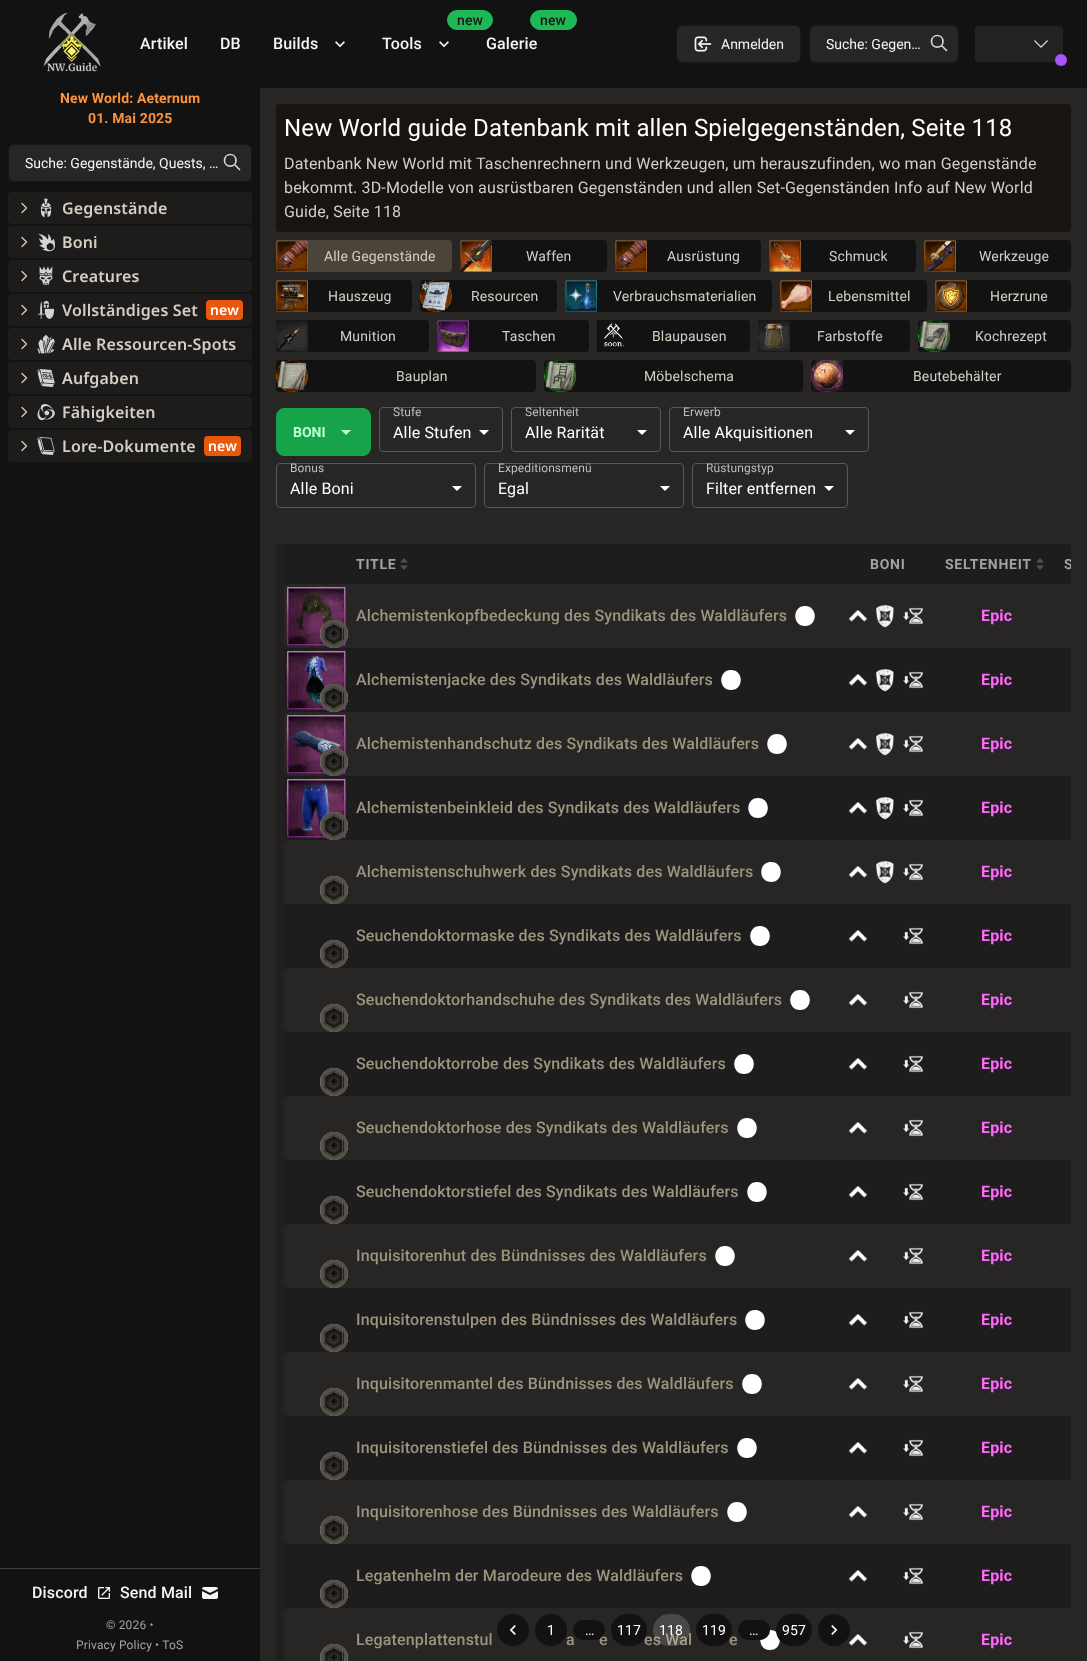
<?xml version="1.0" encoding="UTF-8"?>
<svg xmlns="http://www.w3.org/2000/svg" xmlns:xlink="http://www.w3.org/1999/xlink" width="1087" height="1661">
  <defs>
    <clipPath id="clip1"><rect x="276" y="544" width="795" height="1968" rx="4" /></clipPath>
  </defs>
  <rect width="100%" height="100%" fill="#272624" />
  <rect width="1087" height="88" fill="#121212" />
  <image x="43" y="12" width="58" height="60" xlink:href="image1.png" />
  <image x="335" y="41" width="10" height="7" xlink:href="image2.png" />
  <rect x="447.5" y="10.5" width="45" height="19" rx="9.5" fill="#1eb854" stroke="#1eb854" />
  <image x="439" y="41" width="10" height="7" xlink:href="image2.png" />
  <rect x="530.5" y="10.5" width="46" height="19" rx="9.5" fill="#1eb854" stroke="#1eb854" />
  <rect x="676.5" y="25.5" width="124" height="37" rx="5.5" fill="#262626" stroke="#171717" />
  <image x="694" y="36" width="18" height="16" xlink:href="image3.png" />
  <rect x="809.5" y="25.5" width="149" height="37" rx="5.5" fill="#262626" stroke="#171717" />
  <path d="M 946.5 50.5 l -5 -5 m 1.5 -4 c 0 7.5 -11.5 7.5 -11.5 0 c 0 -8 11.5 -8 11.5 0 z" fill="none" stroke="#d4d4d4" stroke-width="1.7" stroke-linecap="round" stroke-linejoin="round" />
  <rect x="975" y="26" width="88" height="36" rx="4" fill="#232220" />
  <image x="1034" y="40" width="14" height="8" xlink:href="image4.png" />
  <circle cx="1061" cy="60" r="6" fill="#a855f7" />
  <rect y="88" width="260" height="1573" fill="#121212" />
  <rect x="8.5" y="144.5" width="243" height="37" rx="5.5" fill="#262626" stroke="#171717" />
  <path d="M 239.5 169.5 l -5 -5 m 1.5 -4 c 0 7.5 -11.5 7.5 -11.5 0 c 0 -8 11.5 -8 11.5 0 z" fill="none" stroke="#d4d4d4" stroke-width="1.7" stroke-linecap="round" stroke-linejoin="round" />
  <rect x="8" y="192" width="244" height="32" rx="4" fill="#1d1c1b" />
  <path d="M 22 203.5 l 4.5 4.5 l -4.5 4.5" fill="none" stroke="#d4cfc4" stroke-width="1.3" stroke-linecap="round" stroke-linejoin="round" />
  <image x="40" y="198" width="12" height="20" xlink:href="image5.png" />
  <rect x="8" y="226" width="244" height="32" rx="4" fill="#1d1c1b" />
  <path d="M 22 237.5 l 4.5 4.5 l -4.5 4.5" fill="none" stroke="#d4cfc4" stroke-width="1.3" stroke-linecap="round" stroke-linejoin="round" />
  <image x="38" y="233" width="17" height="19" xlink:href="image6.png" />
  <rect x="8" y="260" width="244" height="32" rx="4" fill="#1d1c1b" />
  <path d="M 22 271.5 l 4.5 4.5 l -4.5 4.5" fill="none" stroke="#d4cfc4" stroke-width="1.3" stroke-linecap="round" stroke-linejoin="round" />
  <image x="39" y="266" width="14" height="20" xlink:href="image7.png" />
  <rect x="8" y="294" width="244" height="32" rx="4" fill="#1d1c1b" />
  <path d="M 22 305.5 l 4.5 4.5 l -4.5 4.5" fill="none" stroke="#d4cfc4" stroke-width="1.3" stroke-linecap="round" stroke-linejoin="round" />
  <image x="37" y="300" width="18" height="19" xlink:href="image8.png" />
  <rect x="206" y="300" width="37" height="20" rx="4" fill="#ea580c" />
  <rect x="8" y="328" width="244" height="32" rx="4" fill="#1d1c1b" />
  <path d="M 22 339.5 l 4.5 4.5 l -4.5 4.5" fill="none" stroke="#d4cfc4" stroke-width="1.3" stroke-linecap="round" stroke-linejoin="round" />
  <image x="37" y="334" width="18" height="20" xlink:href="image9.png" />
  <rect x="8" y="362" width="244" height="32" rx="4" fill="#1d1c1b" />
  <path d="M 22 373.5 l 4.5 4.5 l -4.5 4.5" fill="none" stroke="#d4cfc4" stroke-width="1.3" stroke-linecap="round" stroke-linejoin="round" />
  <image x="37" y="369" width="18" height="18" xlink:href="image10.png" />
  <rect x="8" y="396" width="244" height="32" rx="4" fill="#1d1c1b" />
  <path d="M 22 407.5 l 4.5 4.5 l -4.5 4.5" fill="none" stroke="#d4cfc4" stroke-width="1.3" stroke-linecap="round" stroke-linejoin="round" />
  <image x="37" y="404" width="18" height="17" xlink:href="image11.png" />
  <rect x="8" y="430" width="244" height="32" rx="4" fill="#1d1c1b" />
  <path d="M 22 441.5 l 4.5 4.5 l -4.5 4.5" fill="none" stroke="#d4cfc4" stroke-width="1.3" stroke-linecap="round" stroke-linejoin="round" />
  <image x="37" y="437" width="18" height="18" xlink:href="image12.png" />
  <rect x="204" y="436" width="37" height="20" rx="4" fill="#ea580c" />
  <rect y="1568" width="260" height="1" fill="#404040" />
  <image x="98" y="1587" width="12" height="12" xlink:href="image13.png" />
  <image x="202" y="1587" width="16" height="12" xlink:href="image14.png" />
  <rect x="276" y="104" width="795" height="128" rx="4" fill="#171411" />
  <rect x="276" y="240" width="176" height="32" rx="4" fill="#4a443a" />
  <rect x="276" y="240" width="32" height="32" fill="#121212" />
  <image x="276" y="240" width="32" height="32" xlink:href="image15.png" />
  <rect x="460" y="240" width="147" height="32" rx="4" fill="#121212" />
  <rect x="460" y="240" width="3" height="32" fill="#121212" />
  <image x="460" y="240" width="32" height="32" xlink:href="image16.png" />
  <rect x="615" y="240" width="146" height="32" rx="4" fill="#121212" />
  <rect x="615" y="240" width="3" height="32" fill="#121212" />
  <image x="615" y="240" width="32" height="32" xlink:href="image15.png" />
  <rect x="769" y="240" width="147" height="32" rx="4" fill="#121212" />
  <rect x="769" y="240" width="3" height="32" fill="#121212" />
  <image x="769" y="240" width="32" height="32" xlink:href="image17.png" />
  <rect x="924" y="240" width="147" height="32" rx="4" fill="#121212" />
  <rect x="924" y="240" width="3" height="32" fill="#121212" />
  <image x="924" y="240" width="32" height="32" xlink:href="image18.png" />
  <rect x="276" y="280" width="136" height="32" rx="4" fill="#121212" />
  <rect x="276" y="280" width="3" height="32" fill="#121212" />
  <image x="276" y="280" width="32" height="32" xlink:href="image19.png" />
  <rect x="420" y="280" width="137" height="32" rx="4" fill="#121212" />
  <image x="420" y="280" width="32" height="32" xlink:href="image20.png" />
  <rect x="565" y="280" width="207" height="32" rx="4" fill="#121212" />
  <rect x="565" y="280" width="3" height="32" fill="#121212" />
  <image x="565" y="280" width="32" height="32" xlink:href="image21.png" />
  <rect x="780" y="280" width="147" height="32" rx="4" fill="#121212" />
  <rect x="780" y="280" width="3" height="32" fill="#121212" />
  <image x="780" y="280" width="32" height="32" xlink:href="image22.png" />
  <rect x="935" y="280" width="136" height="32" rx="4" fill="#121212" />
  <rect x="935" y="280" width="3" height="32" fill="#121212" />
  <image x="935" y="280" width="32" height="32" xlink:href="image23.png" />
  <rect x="276" y="320" width="153" height="32" rx="4" fill="#121212" />
  <rect x="276" y="320" width="3" height="32" fill="#121212" />
  <image x="276" y="320" width="32" height="32" xlink:href="image24.png" />
  <rect x="437" y="320" width="152" height="32" rx="4" fill="#121212" />
  <rect x="437" y="320" width="3" height="32" fill="#121212" />
  <image x="437" y="320" width="32" height="32" xlink:href="image25.png" />
  <rect x="597" y="320" width="153" height="32" rx="4" fill="#121212" />
  <rect x="597" y="320" width="3" height="32" fill="#121212" />
  <image x="604" y="323" width="20" height="24" xlink:href="image26.png" />
  <rect x="758" y="320" width="152" height="32" rx="4" fill="#121212" />
  <rect x="758" y="320" width="3" height="32" fill="#121212" />
  <image x="758" y="320" width="32" height="32" xlink:href="image27.png" />
  <rect x="918" y="320" width="153" height="32" rx="4" fill="#121212" />
  <image x="918" y="320" width="32" height="32" xlink:href="image28.png" />
  <rect x="276" y="360" width="260" height="32" rx="4" fill="#121212" />
  <image x="276" y="360" width="32" height="32" xlink:href="image29.png" />
  <rect x="544" y="360" width="259" height="32" rx="4" fill="#121212" />
  <image x="544" y="360" width="32" height="32" xlink:href="image30.png" />
  <rect x="811" y="360" width="260" height="32" rx="4" fill="#121212" />
  <image x="811" y="360" width="32" height="32" xlink:href="image31.png" />
  <rect x="276.5" y="408.5" width="94" height="47" rx="7.5" fill="#16a34a" stroke="#16a34a" />
  <path d="M 341 430 l 5 5 l 5 -5 z" fill="#beffd6" />
  <path d="M 479 430 l 5 5 l 5 -5 z" fill="#ffffff" />
  <rect x="379.5" y="407.5" width="123" height="44" rx="3.5" fill="none" stroke="#595856" />
  <path d="M 637 430 l 5 5 l 5 -5 z" fill="#ffffff" />
  <rect x="511.5" y="407.5" width="149" height="44" rx="3.5" fill="none" stroke="#595856" />
  <path d="M 845 430 l 5 5 l 5 -5 z" fill="#ffffff" />
  <rect x="669.5" y="407.5" width="199" height="44" rx="3.5" fill="none" stroke="#595856" />
  <path d="M 452 486 l 5 5 l 5 -5 z" fill="#ffffff" />
  <rect x="276.5" y="463.5" width="199" height="44" rx="3.5" fill="none" stroke="#595856" />
  <path d="M 660 486 l 5 5 l 5 -5 z" fill="#ffffff" />
  <rect x="484.5" y="463.5" width="199" height="44" rx="3.5" fill="none" stroke="#595856" />
  <path d="M 824 486 l 5 5 l 5 -5 z" fill="#ffffff" />
  <rect x="692.5" y="463.5" width="155" height="44" rx="3.5" fill="none" stroke="#595856" />
  <path d="M 280 544 h 787 c 2 0 4 2 4 4 v 1113 h -795 v -1113 c 0 -2 2 -4 4 -4 z" fill="#21201f" />
  <path d="M 284 544 h 783 c 2 0 4 2 4 4 v 36 h -787 z" fill="#1e1d1d" />
  <path d="M 400 562.5 l 4 -4.5 l 4 4.5 z m 0 3 l 4 4.5 l 4 -4.5 z" fill="#525252" />
  <path d="M 1036 562.5 l 4 -4.5 l 4 4.5 z m 0 3 l 4 4.5 l 4 -4.5 z" fill="#525252" />
  <path d="M 290 584 h 781 v 64 h -781 c -3.5 0 -6 -2.5 -6 -6 v -52 c 0 -3.5 2.5 -6 6 -6 z" fill="#272624" />
  <image x="286" y="586" width="60" height="60" xlink:href="image32.png" />
  <circle cx="334" cy="634" r="14" fill="#d4d4d4" fill-opacity="0.9" />
  <path d="M 334 620 c -18.5 0 -18.5 28 0 28 c 18.5 0 18.5 -28 0 -28 z" fill="#4a443a" fill-opacity="0.9" />
  <image x="324" y="622" width="21" height="24" xlink:href="image33.png" />
  <path d="M 805 606 c 13 0 13 20 0 20 c -13 0 -13 -20 0 -20 z" fill="#ffffff" />
  <image x="810" y="620" width="1" height="1" xlink:href="image34.png" />
  <image x="848" y="610" width="20" height="12" xlink:href="image35.png" />
  <image x="876" y="604" width="18" height="24" xlink:href="image36.png" />
  <image x="903" y="607" width="20" height="18" xlink:href="image37.png" />
  <path d="M 290 648 h 781 v 64 h -781 c -3.5 0 -6 -2.5 -6 -6 v -52 c 0 -3.5 2.5 -6 6 -6 z" fill="#1e1d1d" />
  <image x="286" y="650" width="60" height="60" xlink:href="image38.png" />
  <circle cx="334" cy="698" r="14" fill="#d4d4d4" fill-opacity="0.9" />
  <path d="M 334 684 c -18.5 0 -18.5 28 0 28 c 18.5 0 18.5 -28 0 -28 z" fill="#4a443a" fill-opacity="0.9" />
  <image x="324" y="686" width="21" height="24" xlink:href="image39.png" />
  <path d="M 731 670 c 13 0 13 20 0 20 c -13 0 -13 -20 0 -20 z" fill="#ffffff" />
  <image x="736" y="684" width="1" height="1" xlink:href="image34.png" />
  <image x="848" y="674" width="20" height="12" xlink:href="image40.png" />
  <image x="876" y="668" width="18" height="24" xlink:href="image41.png" />
  <image x="903" y="671" width="20" height="18" xlink:href="image42.png" />
  <path d="M 290 712 h 781 v 64 h -781 c -3.5 0 -6 -2.5 -6 -6 v -52 c 0 -3.5 2.5 -6 6 -6 z" fill="#272624" />
  <image x="286" y="714" width="60" height="60" xlink:href="image43.png" />
  <circle cx="334" cy="762" r="14" fill="#d4d4d4" fill-opacity="0.9" />
  <path d="M 334 748 c -18.5 0 -18.5 28 0 28 c 18.5 0 18.5 -28 0 -28 z" fill="#4a443a" fill-opacity="0.9" />
  <image x="324" y="750" width="21" height="24" xlink:href="image44.png" />
  <path d="M 777 734 c 13 0 13 20 0 20 c -13 0 -13 -20 0 -20 z" fill="#ffffff" />
  <image x="782" y="748" width="1" height="1" xlink:href="image34.png" />
  <image x="848" y="738" width="20" height="12" xlink:href="image35.png" />
  <image x="876" y="732" width="18" height="24" xlink:href="image36.png" />
  <image x="903" y="735" width="20" height="18" xlink:href="image37.png" />
  <path d="M 290 776 h 781 v 64 h -781 c -3.5 0 -6 -2.5 -6 -6 v -52 c 0 -3.5 2.5 -6 6 -6 z" fill="#1e1d1d" />
  <image x="286" y="778" width="60" height="60" xlink:href="image45.png" />
  <circle cx="334" cy="826" r="14" fill="#d4d4d4" fill-opacity="0.9" />
  <path d="M 334 812 c -18.5 0 -18.5 28 0 28 c 18.5 0 18.5 -28 0 -28 z" fill="#4a443a" fill-opacity="0.9" />
  <image x="324" y="814" width="21" height="24" xlink:href="image46.png" />
  <path d="M 758 798 c 13 0 13 20 0 20 c -13 0 -13 -20 0 -20 z" fill="#ffffff" />
  <image x="763" y="812" width="1" height="1" xlink:href="image34.png" />
  <image x="848" y="802" width="20" height="12" xlink:href="image40.png" />
  <image x="876" y="796" width="18" height="24" xlink:href="image41.png" />
  <image x="903" y="799" width="20" height="18" xlink:href="image42.png" />
  <path d="M 290 840 h 781 v 64 h -781 c -3.5 0 -6 -2.5 -6 -6 v -52 c 0 -3.5 2.5 -6 6 -6 z" fill="#272624" />
  <path d="M 771 862 c 13 0 13 20 0 20 c -13 0 -13 -20 0 -20 z" fill="#ffffff" />
  <image x="776" y="876" width="1" height="1" xlink:href="image34.png" />
  <image x="848" y="866" width="20" height="12" xlink:href="image35.png" />
  <image x="876" y="860" width="18" height="24" xlink:href="image36.png" />
  <image x="903" y="863" width="20" height="18" xlink:href="image37.png" />
  <circle cx="334" cy="890" r="14" fill="#c3c3c2" />
  <path d="M 334 876 c -18.5 0 -18.5 28 0 28 c 18.5 0 18.5 -28 0 -28 z" fill="#4a443a" fill-opacity="0.9" />
  <image x="324" y="878" width="21" height="24" xlink:href="image47.png" />
  <path d="M 290 904 h 781 v 64 h -781 c -3.5 0 -6 -2.5 -6 -6 v -52 c 0 -3.5 2.5 -6 6 -6 z" fill="#1e1d1d" />
  <path d="M 760 926 c 13 0 13 20 0 20 c -13 0 -13 -20 0 -20 z" fill="#ffffff" />
  <image x="765" y="940" width="1" height="1" xlink:href="image34.png" />
  <image x="848" y="930" width="20" height="12" xlink:href="image40.png" />
  <image x="903" y="927" width="20" height="18" xlink:href="image42.png" />
  <circle cx="334" cy="954" r="14" fill="#c2c2c2" />
  <path d="M 334 940 c -18.5 0 -18.5 28 0 28 c 18.5 0 18.5 -28 0 -28 z" fill="#4a443a" fill-opacity="0.9" />
  <image x="324" y="942" width="21" height="24" xlink:href="image48.png" />
  <path d="M 290 968 h 781 v 64 h -781 c -3.5 0 -6 -2.5 -6 -6 v -52 c 0 -3.5 2.5 -6 6 -6 z" fill="#272624" />
  <path d="M 800 990 c 13 0 13 20 0 20 c -13 0 -13 -20 0 -20 z" fill="#ffffff" />
  <image x="805" y="1004" width="1" height="1" xlink:href="image34.png" />
  <image x="848" y="994" width="20" height="12" xlink:href="image35.png" />
  <image x="903" y="991" width="20" height="18" xlink:href="image37.png" />
  <circle cx="334" cy="1018" r="14" fill="#c3c3c2" />
  <path d="M 334 1004 c -18.5 0 -18.5 28 0 28 c 18.5 0 18.5 -28 0 -28 z" fill="#4a443a" fill-opacity="0.9" />
  <image x="324" y="1006" width="21" height="24" xlink:href="image47.png" />
  <path d="M 290 1032 h 781 v 64 h -781 c -3.5 0 -6 -2.5 -6 -6 v -52 c 0 -3.5 2.5 -6 6 -6 z" fill="#1e1d1d" />
  <path d="M 744 1054 c 13 0 13 20 0 20 c -13 0 -13 -20 0 -20 z" fill="#ffffff" />
  <image x="749" y="1068" width="1" height="1" xlink:href="image34.png" />
  <image x="848" y="1058" width="20" height="12" xlink:href="image40.png" />
  <image x="903" y="1055" width="20" height="18" xlink:href="image42.png" />
  <circle cx="334" cy="1082" r="14" fill="#c2c2c2" />
  <path d="M 334 1068 c -18.5 0 -18.5 28 0 28 c 18.5 0 18.5 -28 0 -28 z" fill="#4a443a" fill-opacity="0.9" />
  <image x="324" y="1070" width="21" height="24" xlink:href="image48.png" />
  <path d="M 290 1096 h 781 v 64 h -781 c -3.5 0 -6 -2.5 -6 -6 v -52 c 0 -3.5 2.5 -6 6 -6 z" fill="#272624" />
  <path d="M 747 1118 c 13 0 13 20 0 20 c -13 0 -13 -20 0 -20 z" fill="#ffffff" />
  <image x="752" y="1132" width="1" height="1" xlink:href="image34.png" />
  <image x="848" y="1122" width="20" height="12" xlink:href="image35.png" />
  <image x="903" y="1119" width="20" height="18" xlink:href="image37.png" />
  <circle cx="334" cy="1146" r="14" fill="#c3c3c2" />
  <path d="M 334 1132 c -18.5 0 -18.5 28 0 28 c 18.5 0 18.5 -28 0 -28 z" fill="#4a443a" fill-opacity="0.9" />
  <image x="324" y="1134" width="21" height="24" xlink:href="image47.png" />
  <path d="M 290 1160 h 781 v 64 h -781 c -3.5 0 -6 -2.5 -6 -6 v -52 c 0 -3.5 2.5 -6 6 -6 z" fill="#1e1d1d" />
  <path d="M 757 1182 c 13 0 13 20 0 20 c -13 0 -13 -20 0 -20 z" fill="#ffffff" />
  <image x="762" y="1196" width="1" height="1" xlink:href="image34.png" />
  <image x="848" y="1186" width="20" height="12" xlink:href="image40.png" />
  <image x="903" y="1183" width="20" height="18" xlink:href="image42.png" />
  <circle cx="334" cy="1210" r="14" fill="#c2c2c2" />
  <path d="M 334 1196 c -18.5 0 -18.5 28 0 28 c 18.5 0 18.5 -28 0 -28 z" fill="#4a443a" fill-opacity="0.9" />
  <image x="324" y="1198" width="21" height="24" xlink:href="image48.png" />
  <path d="M 290 1224 h 781 v 64 h -781 c -3.5 0 -6 -2.5 -6 -6 v -52 c 0 -3.5 2.5 -6 6 -6 z" fill="#272624" />
  <path d="M 725 1246 c 13 0 13 20 0 20 c -13 0 -13 -20 0 -20 z" fill="#ffffff" />
  <image x="730" y="1260" width="1" height="1" xlink:href="image34.png" />
  <image x="848" y="1250" width="20" height="12" xlink:href="image35.png" />
  <image x="903" y="1247" width="20" height="18" xlink:href="image37.png" />
  <circle cx="334" cy="1274" r="14" fill="#c3c3c2" />
  <path d="M 334 1260 c -18.5 0 -18.5 28 0 28 c 18.5 0 18.5 -28 0 -28 z" fill="#4a443a" fill-opacity="0.9" />
  <image x="324" y="1262" width="21" height="24" xlink:href="image47.png" />
  <path d="M 290 1288 h 781 v 64 h -781 c -3.5 0 -6 -2.5 -6 -6 v -52 c 0 -3.5 2.5 -6 6 -6 z" fill="#1e1d1d" />
  <path d="M 755 1310 c 13 0 13 20 0 20 c -13 0 -13 -20 0 -20 z" fill="#ffffff" />
  <image x="760" y="1324" width="1" height="1" xlink:href="image34.png" />
  <image x="848" y="1314" width="20" height="12" xlink:href="image40.png" />
  <image x="903" y="1311" width="20" height="18" xlink:href="image42.png" />
  <circle cx="334" cy="1338" r="14" fill="#c2c2c2" />
  <path d="M 334 1324 c -18.5 0 -18.5 28 0 28 c 18.5 0 18.5 -28 0 -28 z" fill="#4a443a" fill-opacity="0.9" />
  <image x="324" y="1326" width="21" height="24" xlink:href="image48.png" />
  <path d="M 290 1352 h 781 v 64 h -781 c -3.5 0 -6 -2.5 -6 -6 v -52 c 0 -3.5 2.5 -6 6 -6 z" fill="#272624" />
  <path d="M 752 1374 c 13 0 13 20 0 20 c -13 0 -13 -20 0 -20 z" fill="#ffffff" />
  <image x="757" y="1388" width="1" height="1" xlink:href="image34.png" />
  <image x="848" y="1378" width="20" height="12" xlink:href="image35.png" />
  <image x="903" y="1375" width="20" height="18" xlink:href="image37.png" />
  <circle cx="334" cy="1402" r="14" fill="#c3c3c2" />
  <path d="M 334 1388 c -18.5 0 -18.5 28 0 28 c 18.5 0 18.5 -28 0 -28 z" fill="#4a443a" fill-opacity="0.9" />
  <image x="324" y="1390" width="21" height="24" xlink:href="image47.png" />
  <path d="M 290 1416 h 781 v 64 h -781 c -3.5 0 -6 -2.5 -6 -6 v -52 c 0 -3.5 2.5 -6 6 -6 z" fill="#1e1d1d" />
  <path d="M 747 1438 c 13 0 13 20 0 20 c -13 0 -13 -20 0 -20 z" fill="#ffffff" />
  <image x="752" y="1452" width="1" height="1" xlink:href="image34.png" />
  <image x="848" y="1442" width="20" height="12" xlink:href="image40.png" />
  <image x="903" y="1439" width="20" height="18" xlink:href="image42.png" />
  <circle cx="334" cy="1466" r="14" fill="#c2c2c2" />
  <path d="M 334 1452 c -18.5 0 -18.5 28 0 28 c 18.5 0 18.5 -28 0 -28 z" fill="#4a443a" fill-opacity="0.9" />
  <image x="324" y="1454" width="21" height="24" xlink:href="image48.png" />
  <path d="M 290 1480 h 781 v 64 h -781 c -3.5 0 -6 -2.5 -6 -6 v -52 c 0 -3.5 2.5 -6 6 -6 z" fill="#272624" />
  <path d="M 737 1502 c 13 0 13 20 0 20 c -13 0 -13 -20 0 -20 z" fill="#ffffff" />
  <image x="742" y="1516" width="1" height="1" xlink:href="image34.png" />
  <image x="848" y="1506" width="20" height="12" xlink:href="image35.png" />
  <image x="903" y="1503" width="20" height="18" xlink:href="image37.png" />
  <circle cx="334" cy="1530" r="14" fill="#c3c3c2" />
  <path d="M 334 1516 c -18.5 0 -18.5 28 0 28 c 18.5 0 18.5 -28 0 -28 z" fill="#4a443a" fill-opacity="0.9" />
  <image x="324" y="1518" width="21" height="24" xlink:href="image47.png" />
  <path d="M 290 1544 h 781 v 64 h -781 c -3.5 0 -6 -2.5 -6 -6 v -52 c 0 -3.5 2.5 -6 6 -6 z" fill="#1e1d1d" />
  <path d="M 701 1566 c 13 0 13 20 0 20 c -13 0 -13 -20 0 -20 z" fill="#ffffff" />
  <image x="706" y="1580" width="1" height="1" xlink:href="image34.png" />
  <image x="848" y="1570" width="20" height="12" xlink:href="image40.png" />
  <image x="903" y="1567" width="20" height="18" xlink:href="image42.png" />
  <circle cx="334" cy="1594" r="14" fill="#c2c2c2" />
  <path d="M 334 1580 c -18.5 0 -18.5 28 0 28 c 18.5 0 18.5 -28 0 -28 z" fill="#4a443a" fill-opacity="0.9" />
  <image x="324" y="1582" width="21" height="24" xlink:href="image48.png" />
  <path d="M 290 1608 h 781 v 53 h -787 v -47 c 0 -3.5 2.5 -6 6 -6 z" fill="#272624" />
  <path d="M 770 1630 c 13 0 13 20 0 20 c -13 0 -13 -20 0 -20 z" fill="#ffffff" />
  <image x="775" y="1644" width="1" height="1" xlink:href="image34.png" />
  <image x="848" y="1634" width="20" height="12" xlink:href="image35.png" />
  <image x="903" y="1631" width="20" height="18" xlink:href="image37.png" />
  <circle cx="334" cy="1658" r="14" fill="#c3c3c2" />
  <path d="M 334 1644 c -18.5 0 -18.5 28 0 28 c 18.5 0 18.5 -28 0 -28 z" fill="#4a443a" fill-opacity="0.9" />
  <image x="324" y="1646" width="21" height="15" xlink:href="image49.png" />
  <circle cx="513" cy="1630" r="16" fill="#121212" />
  <image x="509" y="1625" width="7" height="10" xlink:href="image50.png" />
  <rect x="738" y="1620" width="32" height="20" rx="10" fill="#121212" />
  <rect x="776" y="1614" width="36" height="32" rx="16" fill="#121212" />
  <circle cx="834" cy="1630" r="16" fill="#121212" />
  <image x="831" y="1625" width="7" height="10" xlink:href="image51.png" />
  <text x="140" y="49" style="font-family: Roboto; font-size: 16px; font-weight: 500; letter-spacing: 0.15px; fill: #f5f5f5">Artikel</text>
  <text x="220" y="49" style="font-family: Roboto; font-size: 16px; font-weight: 500; letter-spacing: 0.15px; fill: #f5f5f5">DB</text>
  <text x="273" y="49" style="font-family: Roboto; font-size: 16px; font-weight: 500; letter-spacing: 0.15px; fill: #f5f5f5">Builds</text>
  <text x="457" y="25" style="font-family: Roboto; font-size: 14px; font-weight: 500; letter-spacing: 0.15px; fill: #131616">new</text>
  <text x="382" y="49" style="font-family: Roboto; font-size: 16px; font-weight: 500; letter-spacing: 0.15px; fill: #f5f5f5">Tools</text>
  <text x="540" y="25" style="font-family: Roboto; font-size: 14px; font-weight: 500; letter-spacing: 0.15px; fill: #131616">new</text>
  <text x="486" y="49" style="font-family: Roboto; font-size: 16px; font-weight: 500; letter-spacing: 0.15px; fill: #f5f5f5">Galerie</text>
  <text x="721" y="49" style="font-family: Roboto; font-size: 14px; fill: #f5f5f5">Anmelden</text>
  <text x="826" y="49" style="font-family: Roboto; font-size: 14px; fill: #f5f5f5">Suche: Gegen…</text>
  <text x="60" y="103" style="font-family: Roboto; font-size: 14px; font-weight: bold; letter-spacing: 0.15px; fill: #fb923c">New World: Aeternum</text>
  <text x="88" y="123" style="font-family: Roboto; font-size: 14px; font-weight: bold; letter-spacing: 0.15px; fill: #fb923c">01. Mai 2025</text>
  <text x="25" y="168" style="font-family: Roboto; font-size: 14px; fill: #f5f5f5">Suche: Gegenstände, Quests, …</text>
  <text x="62" y="214" style="font-family: Noto Sans; font-size: 16px; font-weight: 600; letter-spacing: 0.15px; fill: #d4cfc4">Gegenstände</text>
  <text x="62" y="248" style="font-family: Noto Sans; font-size: 16px; font-weight: 600; letter-spacing: 0.15px; fill: #d4cfc4">Boni</text>
  <text x="62" y="282" style="font-family: Noto Sans; font-size: 16px; font-weight: 600; letter-spacing: 0.15px; fill: #d4cfc4">Creatures</text>
  <text x="62" y="316" style="font-family: Noto Sans; font-size: 16px; font-weight: 600; letter-spacing: 0.15px; fill: #d4cfc4">Vollständiges Set</text>
  <text x="210" y="315" style="font-family: Noto Sans; font-size: 14px; font-weight: 600; letter-spacing: 0.15px; fill: #ffffff">new</text>
  <text x="62" y="350" style="font-family: Noto Sans; font-size: 16px; font-weight: 600; letter-spacing: 0.15px; fill: #d4cfc4">Alle Ressourcen-Spots</text>
  <text x="62" y="384" style="font-family: Noto Sans; font-size: 16px; font-weight: 600; letter-spacing: 0.15px; fill: #d4cfc4">Aufgaben</text>
  <text x="62" y="418" style="font-family: Noto Sans; font-size: 16px; font-weight: 600; letter-spacing: 0.15px; fill: #d4cfc4">Fähigkeiten</text>
  <text x="62" y="452" style="font-family: Noto Sans; font-size: 16px; font-weight: 600; letter-spacing: 0.15px; fill: #d4cfc4">Lore-Dokumente</text>
  <text x="208" y="451" style="font-family: Noto Sans; font-size: 14px; font-weight: 600; letter-spacing: 0.15px; fill: #ffffff">new</text>
  <text x="32" y="1598" style="font-family: Roboto; font-size: 16px; font-weight: 500; letter-spacing: 0.15px; fill: #f5f5f5">Discord</text>
  <text x="120" y="1598" style="font-family: Roboto; font-size: 16px; font-weight: 500; letter-spacing: 0.15px; fill: #f5f5f5">Send Mail</text>
  <text x="106" y="1629" style="font-family: Roboto; font-size: 12px; letter-spacing: 0.15px; fill: #a3a3a3">© 2026 •</text>
  <text x="76" y="1649" style="font-family: Roboto; font-size: 12px; letter-spacing: 0.15px; fill: #a3a3a3">Privacy Policy • ToS</text>
  <text x="284" y="136" style="font-family: Roboto; font-size: 24px; letter-spacing: 0.15px; fill: #ffffff">New World guide Datenbank mit allen Spielgegenständen, Seite 118</text>
  <text x="284" y="169" style="font-family: Roboto; font-size: 16px; letter-spacing: 0.15px; fill: #d4cfc4">Datenbank New World mit Taschenrechnern und Werkzeugen, um herauszufinden, wo man Gegenstände</text>
  <text x="284" y="193" style="font-family: Roboto; font-size: 16px; letter-spacing: 0.15px; fill: #d4cfc4">bekommt. 3D-Modelle von ausrüstbaren Gegenständen und allen Set-Gegenständen Info auf New World</text>
  <text x="284" y="217" style="font-family: Roboto; font-size: 16px; letter-spacing: 0.15px; fill: #d4cfc4">Guide, Seite 118</text>
  <text x="324" y="261" style="font-family: Roboto; font-size: 14px; letter-spacing: 0.15px; fill: #d4cfc4">Alle Gegenstände</text>
  <text x="526" y="261" style="font-family: Roboto; font-size: 14px; letter-spacing: 0.15px; fill: #d4cfc4">Waffen</text>
  <text x="667" y="261" style="font-family: Roboto; font-size: 14px; letter-spacing: 0.15px; fill: #d4cfc4">Ausrüstung</text>
  <text x="829" y="261" style="font-family: Roboto; font-size: 14px; letter-spacing: 0.15px; fill: #d4cfc4">Schmuck</text>
  <text x="979" y="261" style="font-family: Roboto; font-size: 14px; letter-spacing: 0.15px; fill: #d4cfc4">Werkzeuge</text>
  <text x="328" y="301" style="font-family: Roboto; font-size: 14px; letter-spacing: 0.15px; fill: #d4cfc4">Hauszeug</text>
  <text x="471" y="301" style="font-family: Roboto; font-size: 14px; letter-spacing: 0.15px; fill: #d4cfc4">Resourcen</text>
  <text x="613" y="301" style="font-family: Roboto; font-size: 14px; letter-spacing: 0.15px; fill: #d4cfc4">Verbrauchsmaterialien</text>
  <text x="828" y="301" style="font-family: Roboto; font-size: 14px; letter-spacing: 0.15px; fill: #d4cfc4">Lebensmittel</text>
  <text x="990" y="301" style="font-family: Roboto; font-size: 14px; letter-spacing: 0.15px; fill: #d4cfc4">Herzrune</text>
  <text x="340" y="341" style="font-family: Roboto; font-size: 14px; letter-spacing: 0.15px; fill: #d4cfc4">Munition</text>
  <text x="502" y="341" style="font-family: Roboto; font-size: 14px; letter-spacing: 0.15px; fill: #d4cfc4">Taschen</text>
  <text x="652" y="341" style="font-family: Roboto; font-size: 14px; letter-spacing: 0.15px; fill: #d4cfc4">Blaupausen</text>
  <text x="817" y="341" style="font-family: Roboto; font-size: 14px; letter-spacing: 0.15px; fill: #d4cfc4">Farbstoffe</text>
  <text x="975" y="341" style="font-family: Roboto; font-size: 14px; letter-spacing: 0.15px; fill: #d4cfc4">Kochrezept</text>
  <text x="396" y="381" style="font-family: Roboto; font-size: 14px; letter-spacing: 0.15px; fill: #d4cfc4">Bauplan</text>
  <text x="644" y="381" style="font-family: Roboto; font-size: 14px; letter-spacing: 0.15px; fill: #d4cfc4">Möbelschema</text>
  <text x="913" y="381" style="font-family: Roboto; font-size: 14px; letter-spacing: 0.15px; fill: #d4cfc4">Beutebehälter</text>
  <text x="293" y="437" style="font-family: Roboto; font-size: 14px; font-weight: bold; fill: #beffd6">BONI</text>
  <text x="393" y="416" style="font-family: Roboto; font-size: 12px; letter-spacing: 0.1px; fill: #bfbfbe">Stufe</text>
  <text x="393" y="438" style="font-family: Roboto; font-size: 16px; letter-spacing: 0.15px; fill: #ffffff">Alle Stufen</text>
  <text x="525" y="416" style="font-family: Roboto; font-size: 12px; letter-spacing: 0.1px; fill: #bfbfbe">Seltenheit</text>
  <text x="525" y="438" style="font-family: Roboto; font-size: 16px; letter-spacing: 0.15px; fill: #ffffff">Alle Rarität</text>
  <text x="683" y="416" style="font-family: Roboto; font-size: 12px; letter-spacing: 0.1px; fill: #bfbfbe">Erwerb</text>
  <text x="683" y="438" style="font-family: Roboto; font-size: 16px; letter-spacing: 0.15px; fill: #ffffff">Alle Akquisitionen</text>
  <text x="290" y="472" style="font-family: Roboto; font-size: 12px; letter-spacing: 0.1px; fill: #bfbfbe">Bonus</text>
  <text x="290" y="494" style="font-family: Roboto; font-size: 16px; letter-spacing: 0.15px; fill: #ffffff">Alle Boni</text>
  <text x="498" y="472" style="font-family: Roboto; font-size: 12px; letter-spacing: 0.1px; fill: #bfbfbe">Expeditionsmenü</text>
  <text x="498" y="494" style="font-family: Roboto; font-size: 16px; letter-spacing: 0.15px; fill: #ffffff">Egal</text>
  <text x="706" y="472" style="font-family: Roboto; font-size: 12px; letter-spacing: 0.1px; fill: #bfbfbe">Rüstungstyp</text>
  <text x="706" y="494" style="font-family: Roboto; font-size: 16px; letter-spacing: 0.15px; fill: #ffffff">Filter entfernen</text>
  <text x="356" y="569" style="font-family: Roboto; font-size: 14px; font-weight: bold; letter-spacing: 0.75px; fill: #a3a3a3">TITLE</text>
  <text x="870" y="569" style="font-family: Roboto; font-size: 14px; font-weight: bold; letter-spacing: 0.75px; fill: #a3a3a3">BONI</text>
  <text x="945" y="569" style="font-family: Roboto; font-size: 14px; font-weight: bold; letter-spacing: 0.75px; fill: #a3a3a3">SELTENHEIT</text>
  <g clip-path="url(#clip1)">
    <text x="1064" y="569" style="font-family: Roboto; font-size: 14px; font-weight: bold; letter-spacing: 0.75px; fill: #a3a3a3">S</text>
  </g>
  <text x="356" y="621" style="font-family: Roboto; font-size: 16px; font-weight: 500; letter-spacing: 0.15px; fill: #9e937f">Alchemistenkopfbedeckung des Syndikats des Waldläufers</text>
  <text x="981" y="621" style="font-family: Roboto; font-size: 16px; font-weight: bold; letter-spacing: 0.15px; fill: #ff6aff">Epic</text>
  <text x="356" y="685" style="font-family: Roboto; font-size: 16px; font-weight: 500; letter-spacing: 0.15px; fill: #9e937f">Alchemistenjacke des Syndikats des Waldläufers</text>
  <text x="981" y="685" style="font-family: Roboto; font-size: 16px; font-weight: bold; letter-spacing: 0.15px; fill: #ff6aff">Epic</text>
  <text x="356" y="749" style="font-family: Roboto; font-size: 16px; font-weight: 500; letter-spacing: 0.15px; fill: #9e937f">Alchemistenhandschutz des Syndikats des Waldläufers</text>
  <text x="981" y="749" style="font-family: Roboto; font-size: 16px; font-weight: bold; letter-spacing: 0.15px; fill: #ff6aff">Epic</text>
  <text x="356" y="813" style="font-family: Roboto; font-size: 16px; font-weight: 500; letter-spacing: 0.15px; fill: #9e937f">Alchemistenbeinkleid des Syndikats des Waldläufers</text>
  <text x="981" y="813" style="font-family: Roboto; font-size: 16px; font-weight: bold; letter-spacing: 0.15px; fill: #ff6aff">Epic</text>
  <text x="356" y="877" style="font-family: Roboto; font-size: 16px; font-weight: 500; letter-spacing: 0.15px; fill: #9e937f">Alchemistenschuhwerk des Syndikats des Waldläufers</text>
  <text x="981" y="877" style="font-family: Roboto; font-size: 16px; font-weight: bold; letter-spacing: 0.15px; fill: #ff6aff">Epic</text>
  <text x="356" y="941" style="font-family: Roboto; font-size: 16px; font-weight: 500; letter-spacing: 0.15px; fill: #9e937f">Seuchendoktormaske des Syndikats des Waldläufers</text>
  <text x="981" y="941" style="font-family: Roboto; font-size: 16px; font-weight: bold; letter-spacing: 0.15px; fill: #ff6aff">Epic</text>
  <text x="356" y="1005" style="font-family: Roboto; font-size: 16px; font-weight: 500; letter-spacing: 0.15px; fill: #9e937f">Seuchendoktorhandschuhe des Syndikats des Waldläufers</text>
  <text x="981" y="1005" style="font-family: Roboto; font-size: 16px; font-weight: bold; letter-spacing: 0.15px; fill: #ff6aff">Epic</text>
  <text x="356" y="1069" style="font-family: Roboto; font-size: 16px; font-weight: 500; letter-spacing: 0.15px; fill: #9e937f">Seuchendoktorrobe des Syndikats des Waldläufers</text>
  <text x="981" y="1069" style="font-family: Roboto; font-size: 16px; font-weight: bold; letter-spacing: 0.15px; fill: #ff6aff">Epic</text>
  <text x="356" y="1133" style="font-family: Roboto; font-size: 16px; font-weight: 500; letter-spacing: 0.15px; fill: #9e937f">Seuchendoktorhose des Syndikats des Waldläufers</text>
  <text x="981" y="1133" style="font-family: Roboto; font-size: 16px; font-weight: bold; letter-spacing: 0.15px; fill: #ff6aff">Epic</text>
  <text x="356" y="1197" style="font-family: Roboto; font-size: 16px; font-weight: 500; letter-spacing: 0.15px; fill: #9e937f">Seuchendoktorstiefel des Syndikats des Waldläufers</text>
  <text x="981" y="1197" style="font-family: Roboto; font-size: 16px; font-weight: bold; letter-spacing: 0.15px; fill: #ff6aff">Epic</text>
  <text x="356" y="1261" style="font-family: Roboto; font-size: 16px; font-weight: 500; letter-spacing: 0.15px; fill: #9e937f">Inquisitorenhut des Bündnisses des Waldläufers</text>
  <text x="981" y="1261" style="font-family: Roboto; font-size: 16px; font-weight: bold; letter-spacing: 0.15px; fill: #ff6aff">Epic</text>
  <text x="356" y="1325" style="font-family: Roboto; font-size: 16px; font-weight: 500; letter-spacing: 0.15px; fill: #9e937f">Inquisitorenstulpen des Bündnisses des Waldläufers</text>
  <text x="981" y="1325" style="font-family: Roboto; font-size: 16px; font-weight: bold; letter-spacing: 0.15px; fill: #ff6aff">Epic</text>
  <text x="356" y="1389" style="font-family: Roboto; font-size: 16px; font-weight: 500; letter-spacing: 0.15px; fill: #9e937f">Inquisitorenmantel des Bündnisses des Waldläufers</text>
  <text x="981" y="1389" style="font-family: Roboto; font-size: 16px; font-weight: bold; letter-spacing: 0.15px; fill: #ff6aff">Epic</text>
  <text x="356" y="1453" style="font-family: Roboto; font-size: 16px; font-weight: 500; letter-spacing: 0.15px; fill: #9e937f">Inquisitorenstiefel des Bündnisses des Waldläufers</text>
  <text x="981" y="1453" style="font-family: Roboto; font-size: 16px; font-weight: bold; letter-spacing: 0.15px; fill: #ff6aff">Epic</text>
  <text x="356" y="1517" style="font-family: Roboto; font-size: 16px; font-weight: 500; letter-spacing: 0.15px; fill: #9e937f">Inquisitorenhose des Bündnisses des Waldläufers</text>
  <text x="981" y="1517" style="font-family: Roboto; font-size: 16px; font-weight: bold; letter-spacing: 0.15px; fill: #ff6aff">Epic</text>
  <text x="356" y="1581" style="font-family: Roboto; font-size: 16px; font-weight: 500; letter-spacing: 0.15px; fill: #9e937f">Legatenhelm der Marodeure des Waldläufers</text>
  <text x="981" y="1581" style="font-family: Roboto; font-size: 16px; font-weight: bold; letter-spacing: 0.15px; fill: #ff6aff">Epic</text>
  <text x="356" y="1645" style="font-family: Roboto; font-size: 16px; font-weight: 500; letter-spacing: 0.15px; fill: #9e937f">Legatenplattenstul</text>
  <text x="566" y="1645" style="font-family: Roboto; font-size: 16px; font-weight: 500; letter-spacing: 0.15px; fill: #9e937f">a</text>
  <text x="599" y="1645" style="font-family: Roboto; font-size: 16px; font-weight: 500; letter-spacing: 0.15px; fill: #9e937f">e</text>
  <text x="644" y="1645" style="font-family: Roboto; font-size: 16px; font-weight: 500; letter-spacing: 0.15px; fill: #9e937f">es Wal</text>
  <text x="729" y="1645" style="font-family: Roboto; font-size: 16px; font-weight: 500; letter-spacing: 0.15px; fill: #9e937f">e</text>
  <text x="981" y="1645" style="font-family: Roboto; font-size: 16px; font-weight: bold; letter-spacing: 0.15px; fill: #ff6aff">Epic</text>
  <circle cx="551" cy="1630" r="16" fill="#121212" />
  <text x="547" y="1635" style="font-family: Roboto; font-size: 14px; letter-spacing: 0.15px; fill: #ffffff">1</text>
  <rect x="573" y="1620" width="32" height="20" rx="10" fill="#121212" />
  <text x="585" y="1635" style="font-family: Roboto; font-size: 14px; letter-spacing: 0.15px; fill: #ffffff">…</text>
  <rect x="611" y="1614" width="36" height="32" rx="16" fill="#121212" />
  <text x="617" y="1635" style="font-family: Roboto; font-size: 14px; letter-spacing: 0.15px; fill: #ffffff">117</text>
  <rect x="653" y="1614" width="37" height="32" rx="16" fill="#ffffff" fill-opacity="0.16" />
  <text x="659" y="1635" style="font-family: Roboto; font-size: 14px; letter-spacing: 0.15px; fill: #ffffff">118</text>
  <rect x="696" y="1614" width="36" height="32" rx="16" fill="#121212" />
  <text x="702" y="1635" style="font-family: Roboto; font-size: 14px; letter-spacing: 0.15px; fill: #ffffff">119</text>
  <text x="749" y="1635" style="font-family: Roboto; font-size: 14px; letter-spacing: 0.15px; fill: #ffffff">…</text>
  <text x="782" y="1635" style="font-family: Roboto; font-size: 14px; letter-spacing: 0.15px; fill: #ffffff">957</text>
</svg>
